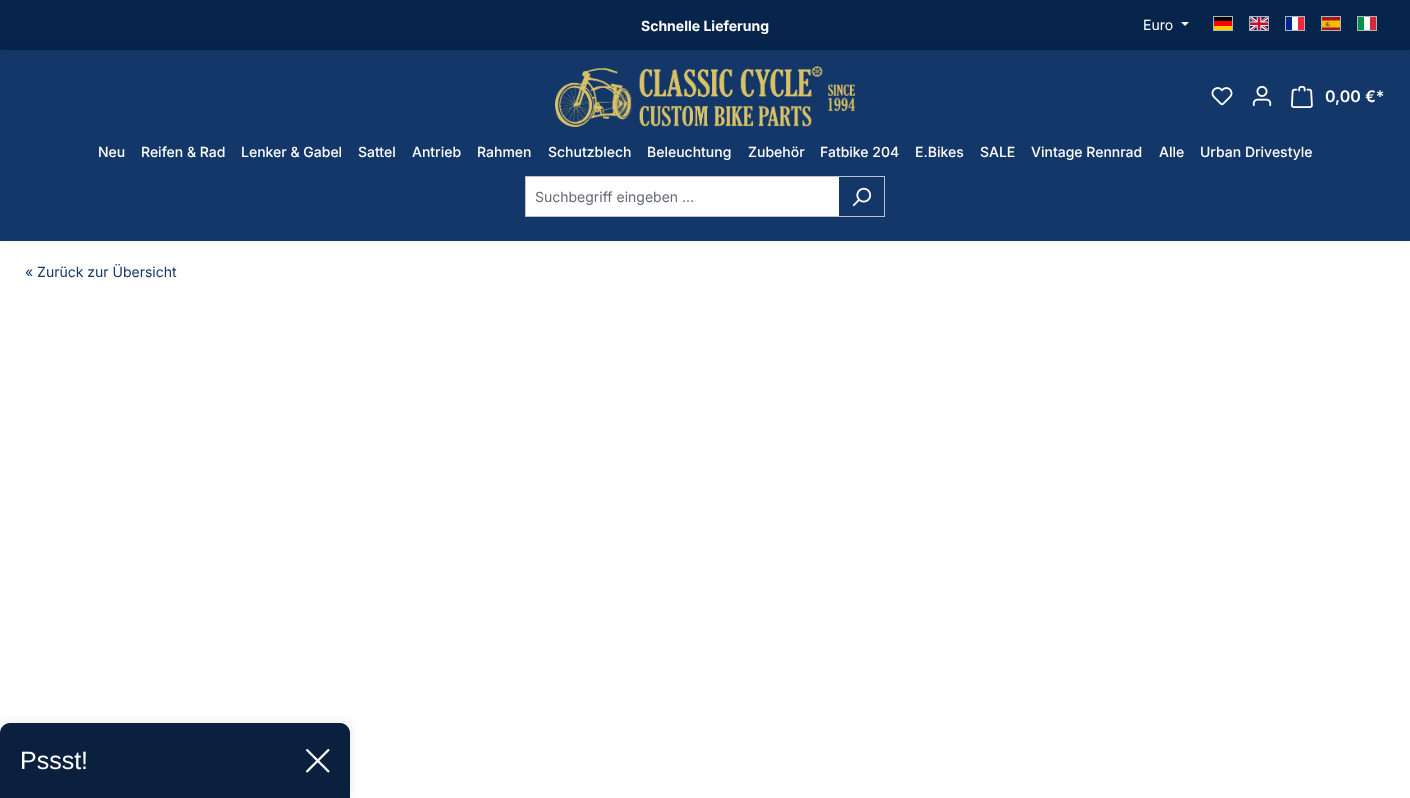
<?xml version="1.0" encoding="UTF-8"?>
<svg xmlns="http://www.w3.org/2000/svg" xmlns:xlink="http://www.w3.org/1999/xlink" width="1410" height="798">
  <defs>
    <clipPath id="clip1"><path d="M 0 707 h 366 v 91 h -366 z m 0 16 h 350 v 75 h -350 z" clip-rule="evenodd" /></clipPath>
  </defs>
  <rect width="100%" height="100%" fill="#ffffff" />
  <rect width="1410" height="50" fill="#07244b" />
  <path d="M 1181 22 h 8 l -4 4 z" fill="#ffffff" />
  <rect x="1214" y="17" width="18" height="4" fill="#000000" />
  <rect x="1214" y="21" width="18" height="5" fill="#ff0000" />
  <rect x="1214" y="26" width="18" height="4" fill="#ffcc00" />
  <rect x="1213.5" y="16.5" width="19" height="14" fill="none" stroke="#adb5bd" />
  <image x="1250" y="17" width="18" height="13" xlink:href="image1.png" />
  <rect x="1249.5" y="16.5" width="19" height="14" fill="none" stroke="#adb5bd" />
  <rect x="1286" y="16" width="6" height="15" fill="#002395" />
  <rect x="1292" y="16" width="6" height="15" fill="#ffffff" />
  <rect x="1298" y="16" width="6" height="15" fill="#ed2939" />
  <rect x="1285.5" y="16.5" width="19" height="14" fill="none" stroke="#adb5bd" />
  <image x="1322" y="17" width="18" height="13" xlink:href="image2.png" />
  <rect x="1321.5" y="16.5" width="19" height="14" fill="none" stroke="#adb5bd" />
  <rect x="1358" y="16" width="6" height="15" fill="#009246" />
  <rect x="1364" y="16" width="6" height="15" fill="#ffffff" />
  <rect x="1370" y="16" width="6" height="15" fill="#ce2b37" />
  <rect x="1357.5" y="16.5" width="19" height="14" fill="none" stroke="#adb5bd" />
  <rect y="50" width="1410" height="191" fill="#000000" fill-opacity="0.07" filter="blur(5px)" />
  <rect y="50" width="1410" height="191" fill="#133769" />
  <image x="555" y="66" width="300" height="61" xlink:href="image3.png" />
  <image x="1211" y="87" width="22" height="19" xlink:href="image4.png" />
  <image x="1252" y="85" width="20" height="22" xlink:href="image5.png" />
  <image x="1291" y="86" width="22" height="22" xlink:href="image6.png" />
  <rect x="526" y="177" width="313" height="39" fill="#ffffff" />
  <rect x="525" y="176" width="360" height="1" fill="#bcc1c7" />
  <rect x="525" y="216" width="314" height="1" fill="#bcc1c7" />
  <rect x="525" y="176" width="1" height="41" fill="#bcc1c7" />
  <rect x="884" y="176" width="1" height="41" fill="#bcc1c7" />
  <rect x="838" y="216" width="47" height="1" fill="#bcc1c7" />
  <image x="852" y="187" width="20" height="20" xlink:href="image7.png" />
  <g clip-path="url(#clip1)">
    <rect y="723" width="350" height="75" fill="#000000" fill-opacity="0.1" filter="blur(5px)" />
  </g>
  <path d="M 10 723 h 330 c 5.5 0 10 4.5 10 10 v 65 h -350 v -65 c 0 -5.5 4.5 -10 10 -10 z" fill="#0b203e" />
  <image x="306" y="749" width="24" height="24" xlink:href="image8.png" />
  <text x="641" y="31" style="font-family: Inter; font-size: 14px; font-weight: bold; fill: #ffffff">Schnelle Lieferung</text>
  <text x="1143" y="30" style="font-family: Inter; font-size: 14px; fill: #ffffff">Euro</text>
  <text x="1325" y="102" style="font-family: Inter; font-size: 16px; font-weight: 600; fill: #ffffff">0,00 €*</text>
  <text x="98" y="157" style="font-family: Inter; font-size: 14px; font-weight: 500; fill: #ffffff">Neu</text>
  <text x="141" y="157" style="font-family: Inter; font-size: 14px; font-weight: 500; fill: #ffffff">Reifen &amp; Rad</text>
  <text x="241" y="157" style="font-family: Inter; font-size: 14px; font-weight: 500; fill: #ffffff">Lenker &amp; Gabel</text>
  <text x="358" y="157" style="font-family: Inter; font-size: 14px; font-weight: 500; fill: #ffffff">Sattel</text>
  <text x="412" y="157" style="font-family: Inter; font-size: 14px; font-weight: 500; fill: #ffffff">Antrieb</text>
  <text x="477" y="157" style="font-family: Inter; font-size: 14px; font-weight: 500; fill: #ffffff">Rahmen</text>
  <text x="548" y="157" style="font-family: Inter; font-size: 14px; font-weight: 500; fill: #ffffff">Schutzblech</text>
  <text x="647" y="157" style="font-family: Inter; font-size: 14px; font-weight: 500; fill: #ffffff">Beleuchtung</text>
  <text x="748" y="157" style="font-family: Inter; font-size: 14px; font-weight: 500; fill: #ffffff">Zubehör</text>
  <text x="820" y="157" style="font-family: Inter; font-size: 14px; font-weight: 500; fill: #ffffff">Fatbike 204</text>
  <text x="915" y="157" style="font-family: Inter; font-size: 14px; font-weight: 500; fill: #ffffff">E.Bikes</text>
  <text x="980" y="157" style="font-family: Inter; font-size: 14px; font-weight: 500; fill: #ffffff">SALE</text>
  <text x="1031" y="157" style="font-family: Inter; font-size: 14px; font-weight: 500; fill: #ffffff">Vintage Rennrad</text>
  <text x="1159" y="157" style="font-family: Inter; font-size: 14px; font-weight: 500; fill: #ffffff">Alle</text>
  <text x="1200" y="157" style="font-family: Inter; font-size: 14px; font-weight: 500; fill: #ffffff">Urban Drivestyle</text>
  <text x="535" y="202" style="font-family: Inter; font-size: 14px; fill: #666977">Suchbegriff eingeben ...</text>
  <text x="25" y="277" style="font-family: Inter; font-size: 14px; fill: #133769">« Zurück zur Übersicht</text>
  <text x="20" y="769" style="font-family: Liberation Sans; font-size: 25px; fill: #ffffff">Pssst!</text>
</svg>
